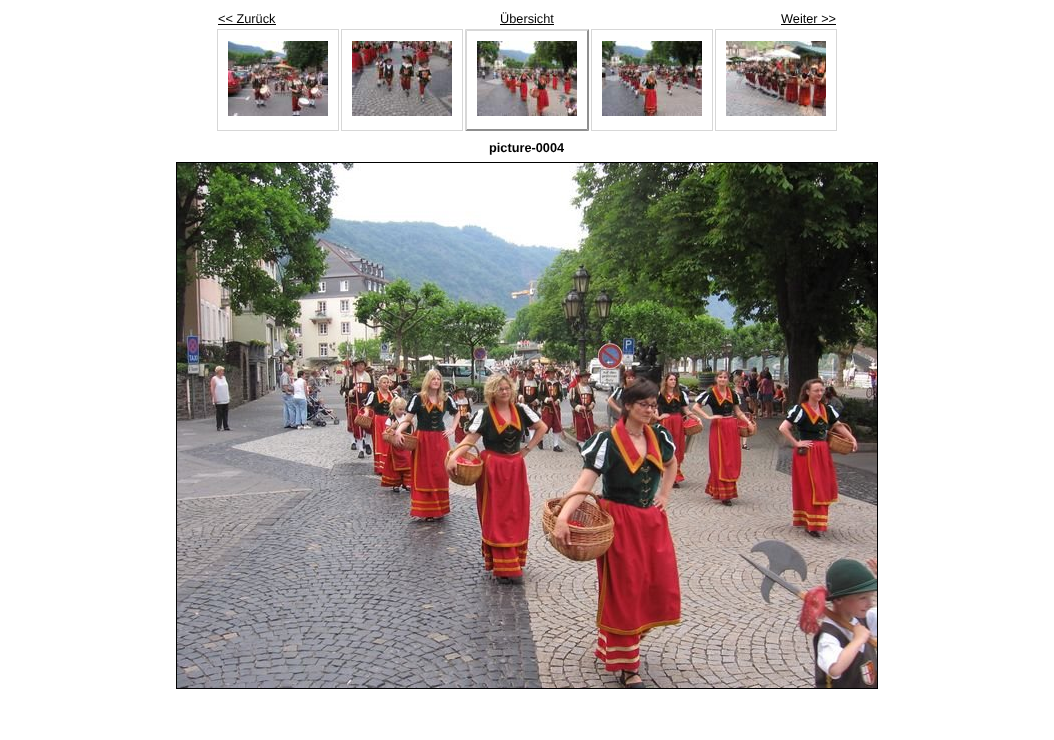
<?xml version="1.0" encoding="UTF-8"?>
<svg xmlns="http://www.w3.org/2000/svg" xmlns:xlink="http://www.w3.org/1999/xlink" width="1054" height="740">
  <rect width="100%" height="100%" fill="#ffffff" />
  <rect x="218" y="24" width="58" height="1" fill="#000000" />
  <rect x="500" y="24" width="54" height="1" fill="#000000" />
  <rect x="781" y="24" width="55" height="1" fill="#000000" />
  <rect x="217.5" y="29.5" width="121" height="101" fill="none" stroke="#d7d7d7" />
  <image x="228" y="41" width="100" height="75" xlink:href="image1.png" />
  <rect x="341.5" y="29.5" width="121" height="101" fill="none" stroke="#d7d7d7" />
  <image x="352" y="41" width="100" height="75" xlink:href="image2.png" />
  <path d="M 465 29 h 124 l -2 2 h -120 z" fill="#d7d7d7" />
  <path d="M 589 29 v 102 l -2 -2 v -98 z" fill="#8f8f8f" />
  <path d="M 589 131 h -124 l 2 -2 h 120 z" fill="#8f8f8f" />
  <path d="M 465 131 v -102 l 2 2 v 98 z" fill="#d7d7d7" />
  <image x="477" y="41" width="100" height="75" xlink:href="image3.png" />
  <rect x="591.5" y="29.5" width="121" height="101" fill="none" stroke="#d7d7d7" />
  <image x="602" y="41" width="100" height="75" xlink:href="image4.png" />
  <rect x="715.5" y="29.5" width="121" height="101" fill="none" stroke="#d7d7d7" />
  <image x="726" y="41" width="100" height="75" xlink:href="image5.png" />
  <rect x="176.5" y="162.5" width="701" height="526" fill="none" stroke="#000000" />
  <image x="177" y="163" width="700" height="525" xlink:href="image6.png" />
  <text x="218" y="23" style="font-family: Liberation Sans; font-size: 12.75px; fill: #000000">&lt;&lt; Zurück</text>
  <text x="500" y="23" style="font-family: Liberation Sans; font-size: 12.75px; fill: #000000">Übersicht</text>
  <text x="781" y="23" style="font-family: Liberation Sans; font-size: 12.75px; fill: #000000">Weiter &gt;&gt;</text>
  <text x="489" y="152" style="font-family: Liberation Sans; font-size: 12.75px; font-weight: bold; fill: #000000">picture-0004</text>
</svg>
